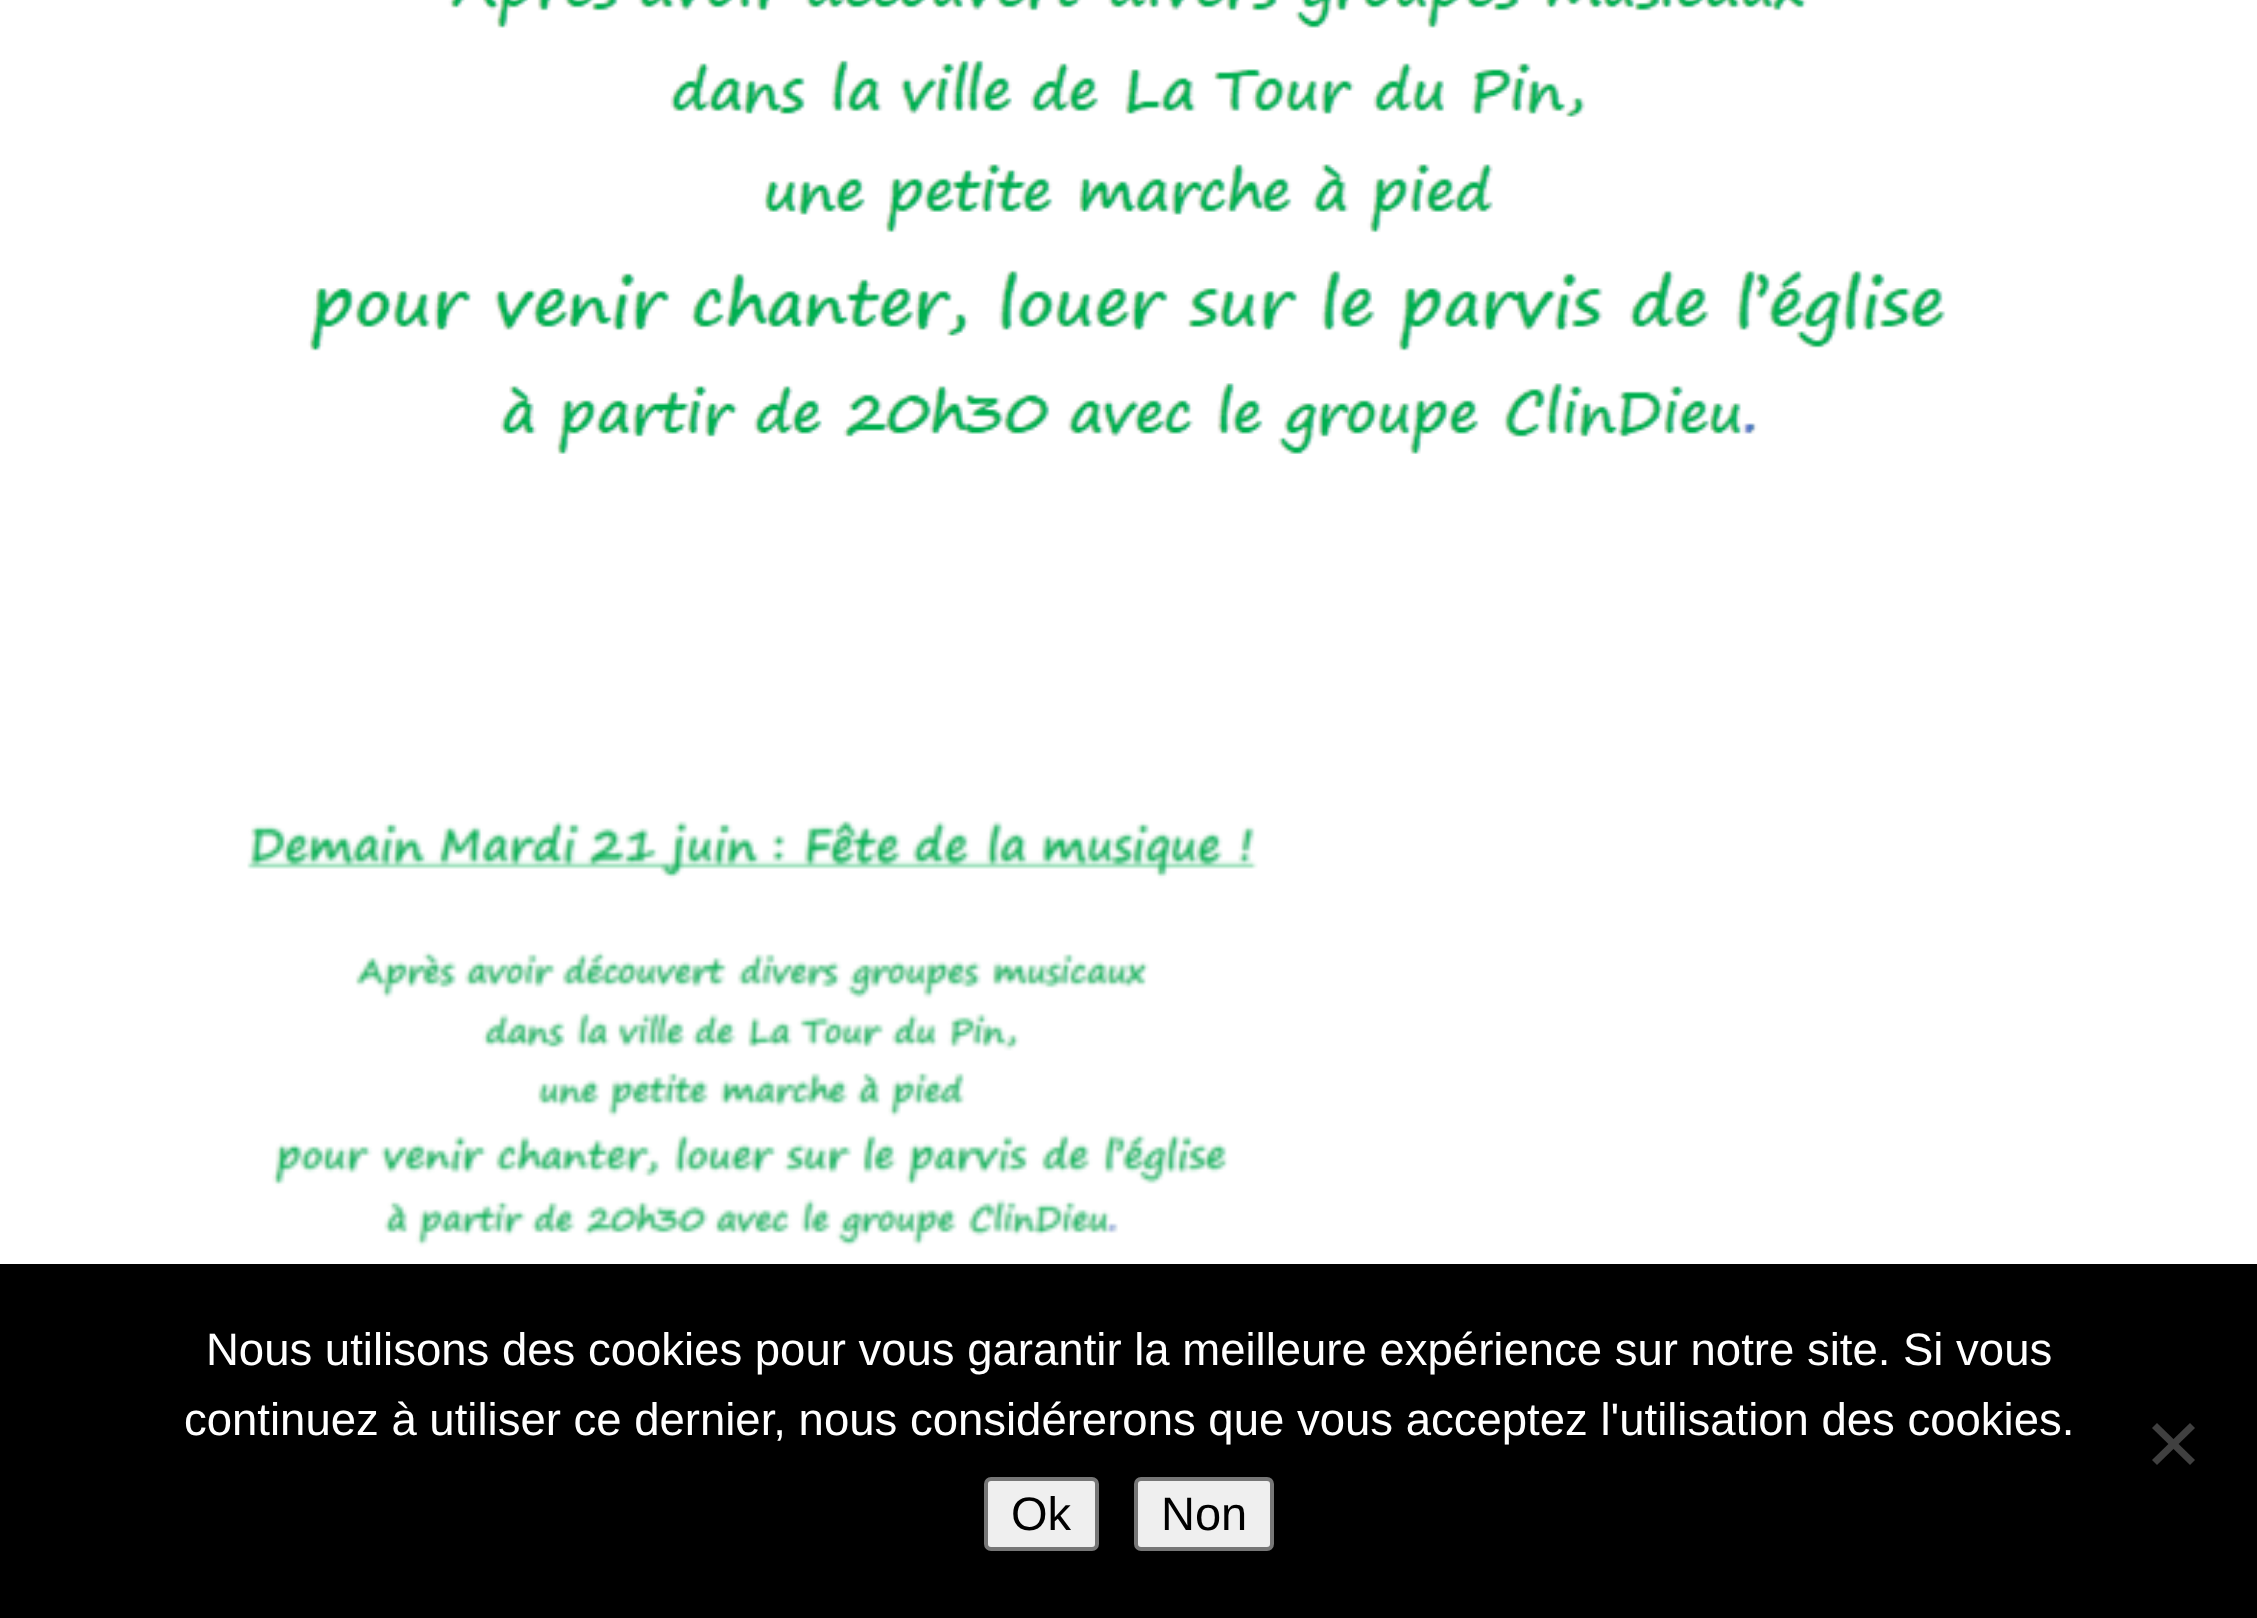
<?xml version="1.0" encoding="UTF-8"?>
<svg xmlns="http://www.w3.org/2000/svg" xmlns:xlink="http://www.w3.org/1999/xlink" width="2257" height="1618">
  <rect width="100%" height="100%" fill="#ffffff" />
  <image x="308" y="0" width="1638" height="454" xlink:href="image1.png" />
  <image x="247" y="820" width="1011" height="427" xlink:href="image2.png" />
  <rect y="1264" width="2257" height="354" fill="#000000" />
  <path d="M 2190 1423 l 5 5 l -38 37 l -5 -5 z" fill="#404040" />
  <path d="M 2152 1428 l 5 -5 l 38 37 l -5 5 z" fill="#404040" />
  <rect x="986" y="1479" width="111" height="70" rx="5" fill="#efefef" stroke="#767676" stroke-width="4" />
  <rect x="1136" y="1479" width="136" height="70" rx="5" fill="#efefef" stroke="#767676" stroke-width="4" />
  <text x="206" y="1365" style="font-family: Liberation Sans; font-size: 45.5px; fill: #ffffff">Nous utilisons des cookies pour vous garantir la meilleure expérience sur notre site. Si vous</text>
  <text x="184" y="1435" style="font-family: Liberation Sans; font-size: 45.5px; fill: #ffffff">continuez à utiliser ce dernier, nous considérerons que vous acceptez l'utilisation des cookies.</text>
  <text x="1011" y="1530" style="font-family: Liberation Sans; font-size: 47px; fill: #000000">Ok</text>
  <text x="1161" y="1530" style="font-family: Liberation Sans; font-size: 47px; fill: #000000">Non</text>
</svg>
